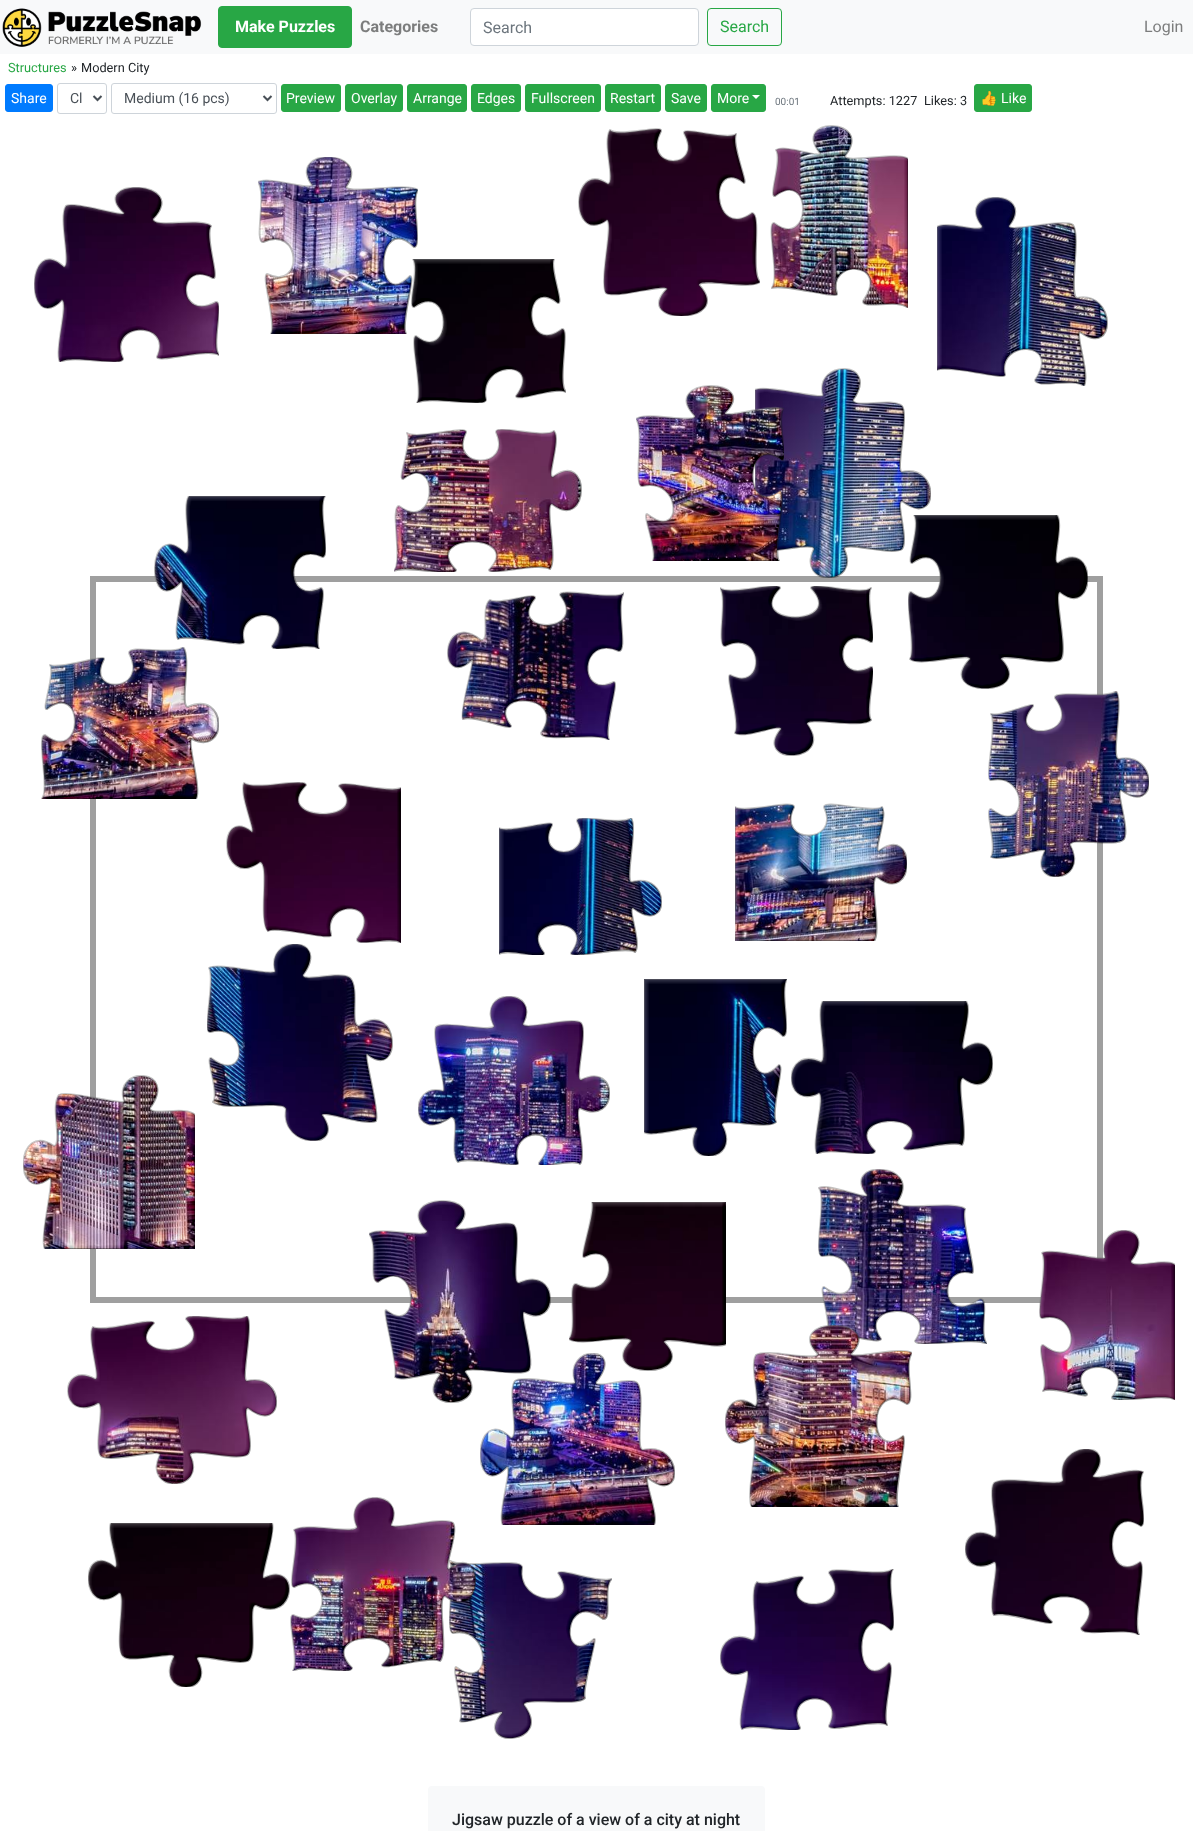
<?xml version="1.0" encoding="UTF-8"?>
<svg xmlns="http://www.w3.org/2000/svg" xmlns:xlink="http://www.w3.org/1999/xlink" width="1193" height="1831">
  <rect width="100%" height="100%" fill="#ffffff" />
  <rect width="1193" height="54" fill="#f8f9fa" />
  <image x="2" y="8" width="200" height="39" xlink:href="image1.png" />
  <rect x="218.5" y="6.5" width="133" height="41" rx="3.5" fill="#28a745" stroke="#28a745" />
  <rect x="470.5" y="8.5" width="228" height="37" rx="3.5" fill="#ffffff" stroke="#ced4da" />
  <rect x="707.5" y="8.5" width="74" height="37" rx="3.5" fill="none" stroke="#28a745" />
  <rect x="5.5" y="84.5" width="47" height="27" rx="2.5" fill="#007bff" stroke="#007bff" />
  <rect x="57.5" y="83.5" width="49" height="30" rx="2.5" fill="none" stroke="#ced4da" />
  <path d="M 93.5 96 l 4 4 l 4 -4" fill="none" stroke="#495057" stroke-width="2" />
  <rect x="111.5" y="83.5" width="165" height="30" rx="2.5" fill="none" stroke="#ced4da" />
  <path d="M 263.5 96 l 4 4 l 4 -4" fill="none" stroke="#495057" stroke-width="2" />
  <rect x="281.5" y="84.5" width="59" height="27" rx="2.5" fill="#28a745" stroke="#28a745" />
  <rect x="345.5" y="84.5" width="57" height="27" rx="2.5" fill="#28a745" stroke="#28a745" />
  <rect x="407.5" y="84.5" width="59" height="27" rx="2.5" fill="#28a745" stroke="#28a745" />
  <rect x="471.5" y="84.5" width="49" height="27" rx="2.5" fill="#28a745" stroke="#28a745" />
  <rect x="525.5" y="84.5" width="75" height="27" rx="2.5" fill="#28a745" stroke="#28a745" />
  <rect x="605.5" y="84.5" width="55" height="27" rx="2.5" fill="#28a745" stroke="#28a745" />
  <rect x="665.5" y="84.5" width="41" height="27" rx="2.5" fill="#28a745" stroke="#28a745" />
  <rect x="711.5" y="84.5" width="54" height="27" rx="2.5" fill="#28a745" stroke="#28a745" />
  <path d="M 752 95 h 8 l -4 4 z" fill="#ffffff" />
  <rect x="974.5" y="84.5" width="57" height="27" rx="2.5" fill="#28a745" stroke="#28a745" />
  <image x="23" y="125" width="1152" height="1614" xlink:href="image2.png" />
  <rect x="428" y="1786" width="337" height="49" rx="4" fill="#f8f9fa" />
  <text x="235" y="32" style="font-family: Roboto; font-size: 16px; font-weight: bold; fill: #ffffff">Make Puzzles</text>
  <text x="360" y="32" style="font-family: Roboto; font-size: 16px; font-weight: bold; fill: #7c7d7d">Categories</text>
  <text x="483" y="33" style="font-family: Roboto; font-size: 16px; fill: #6c757d">Search</text>
  <text x="720" y="32" style="font-family: Roboto; font-size: 16px; fill: #28a745">Search</text>
  <text x="1144" y="32" style="font-family: Roboto; font-size: 16px; fill: #7c7d7d">Login</text>
  <text x="8" y="72" style="font-family: Roboto; font-size: 12.75px; fill: #28a745">Structures</text>
  <text x="71" y="72" style="font-family: Roboto; font-size: 12.75px; fill: #212529">»</text>
  <text x="81" y="72" style="font-family: Roboto; font-size: 12.75px; fill: #212529">Modern City</text>
  <text x="11" y="103" style="font-family: Roboto; font-size: 14px; fill: #ffffff">Share</text>
  <text x="70" y="103" style="font-family: Roboto; font-size: 14px; fill: #495057">Cl</text>
  <text x="124" y="103" style="font-family: Roboto; font-size: 14px; fill: #495057">Medium (16 pcs)</text>
  <text x="286" y="103" style="font-family: Roboto; font-size: 14px; fill: #ffffff">Preview</text>
  <text x="351" y="103" style="font-family: Roboto; font-size: 14px; fill: #ffffff">Overlay</text>
  <text x="413" y="103" style="font-family: Roboto; font-size: 14px; fill: #ffffff">Arrange</text>
  <text x="477" y="103" style="font-family: Roboto; font-size: 14px; fill: #ffffff">Edges</text>
  <text x="531" y="103" style="font-family: Roboto; font-size: 14px; fill: #ffffff">Fullscreen</text>
  <text x="610" y="103" style="font-family: Roboto; font-size: 14px; fill: #ffffff">Restart</text>
  <text x="671" y="103" style="font-family: Roboto; font-size: 14px; fill: #ffffff">Save</text>
  <text x="717" y="103" style="font-family: Roboto; font-size: 14px; fill: #ffffff">More</text>
  <text x="775" y="105" style="font-family: Roboto; font-size: 10px; fill: #6c757d">00:01</text>
  <text x="830" y="105" style="font-family: Roboto; font-size: 12.75px; fill: #212529">Attempts: 1227</text>
  <text x="924" y="105" style="font-family: Roboto; font-size: 12.75px; fill: #212529">Likes: 3</text>
  <text x="980" y="103" style="font-family: Noto Color Emoji; font-size: 14px; fill: #ffffff">👍</text>
  <text x="1001" y="103" style="font-family: Roboto; font-size: 14px; fill: #ffffff">Like</text>
  <text x="452" y="1825" style="font-family: Roboto; font-size: 16px; font-weight: 500; fill: #212529">Jigsaw puzzle of a view of a city at night</text>
</svg>
